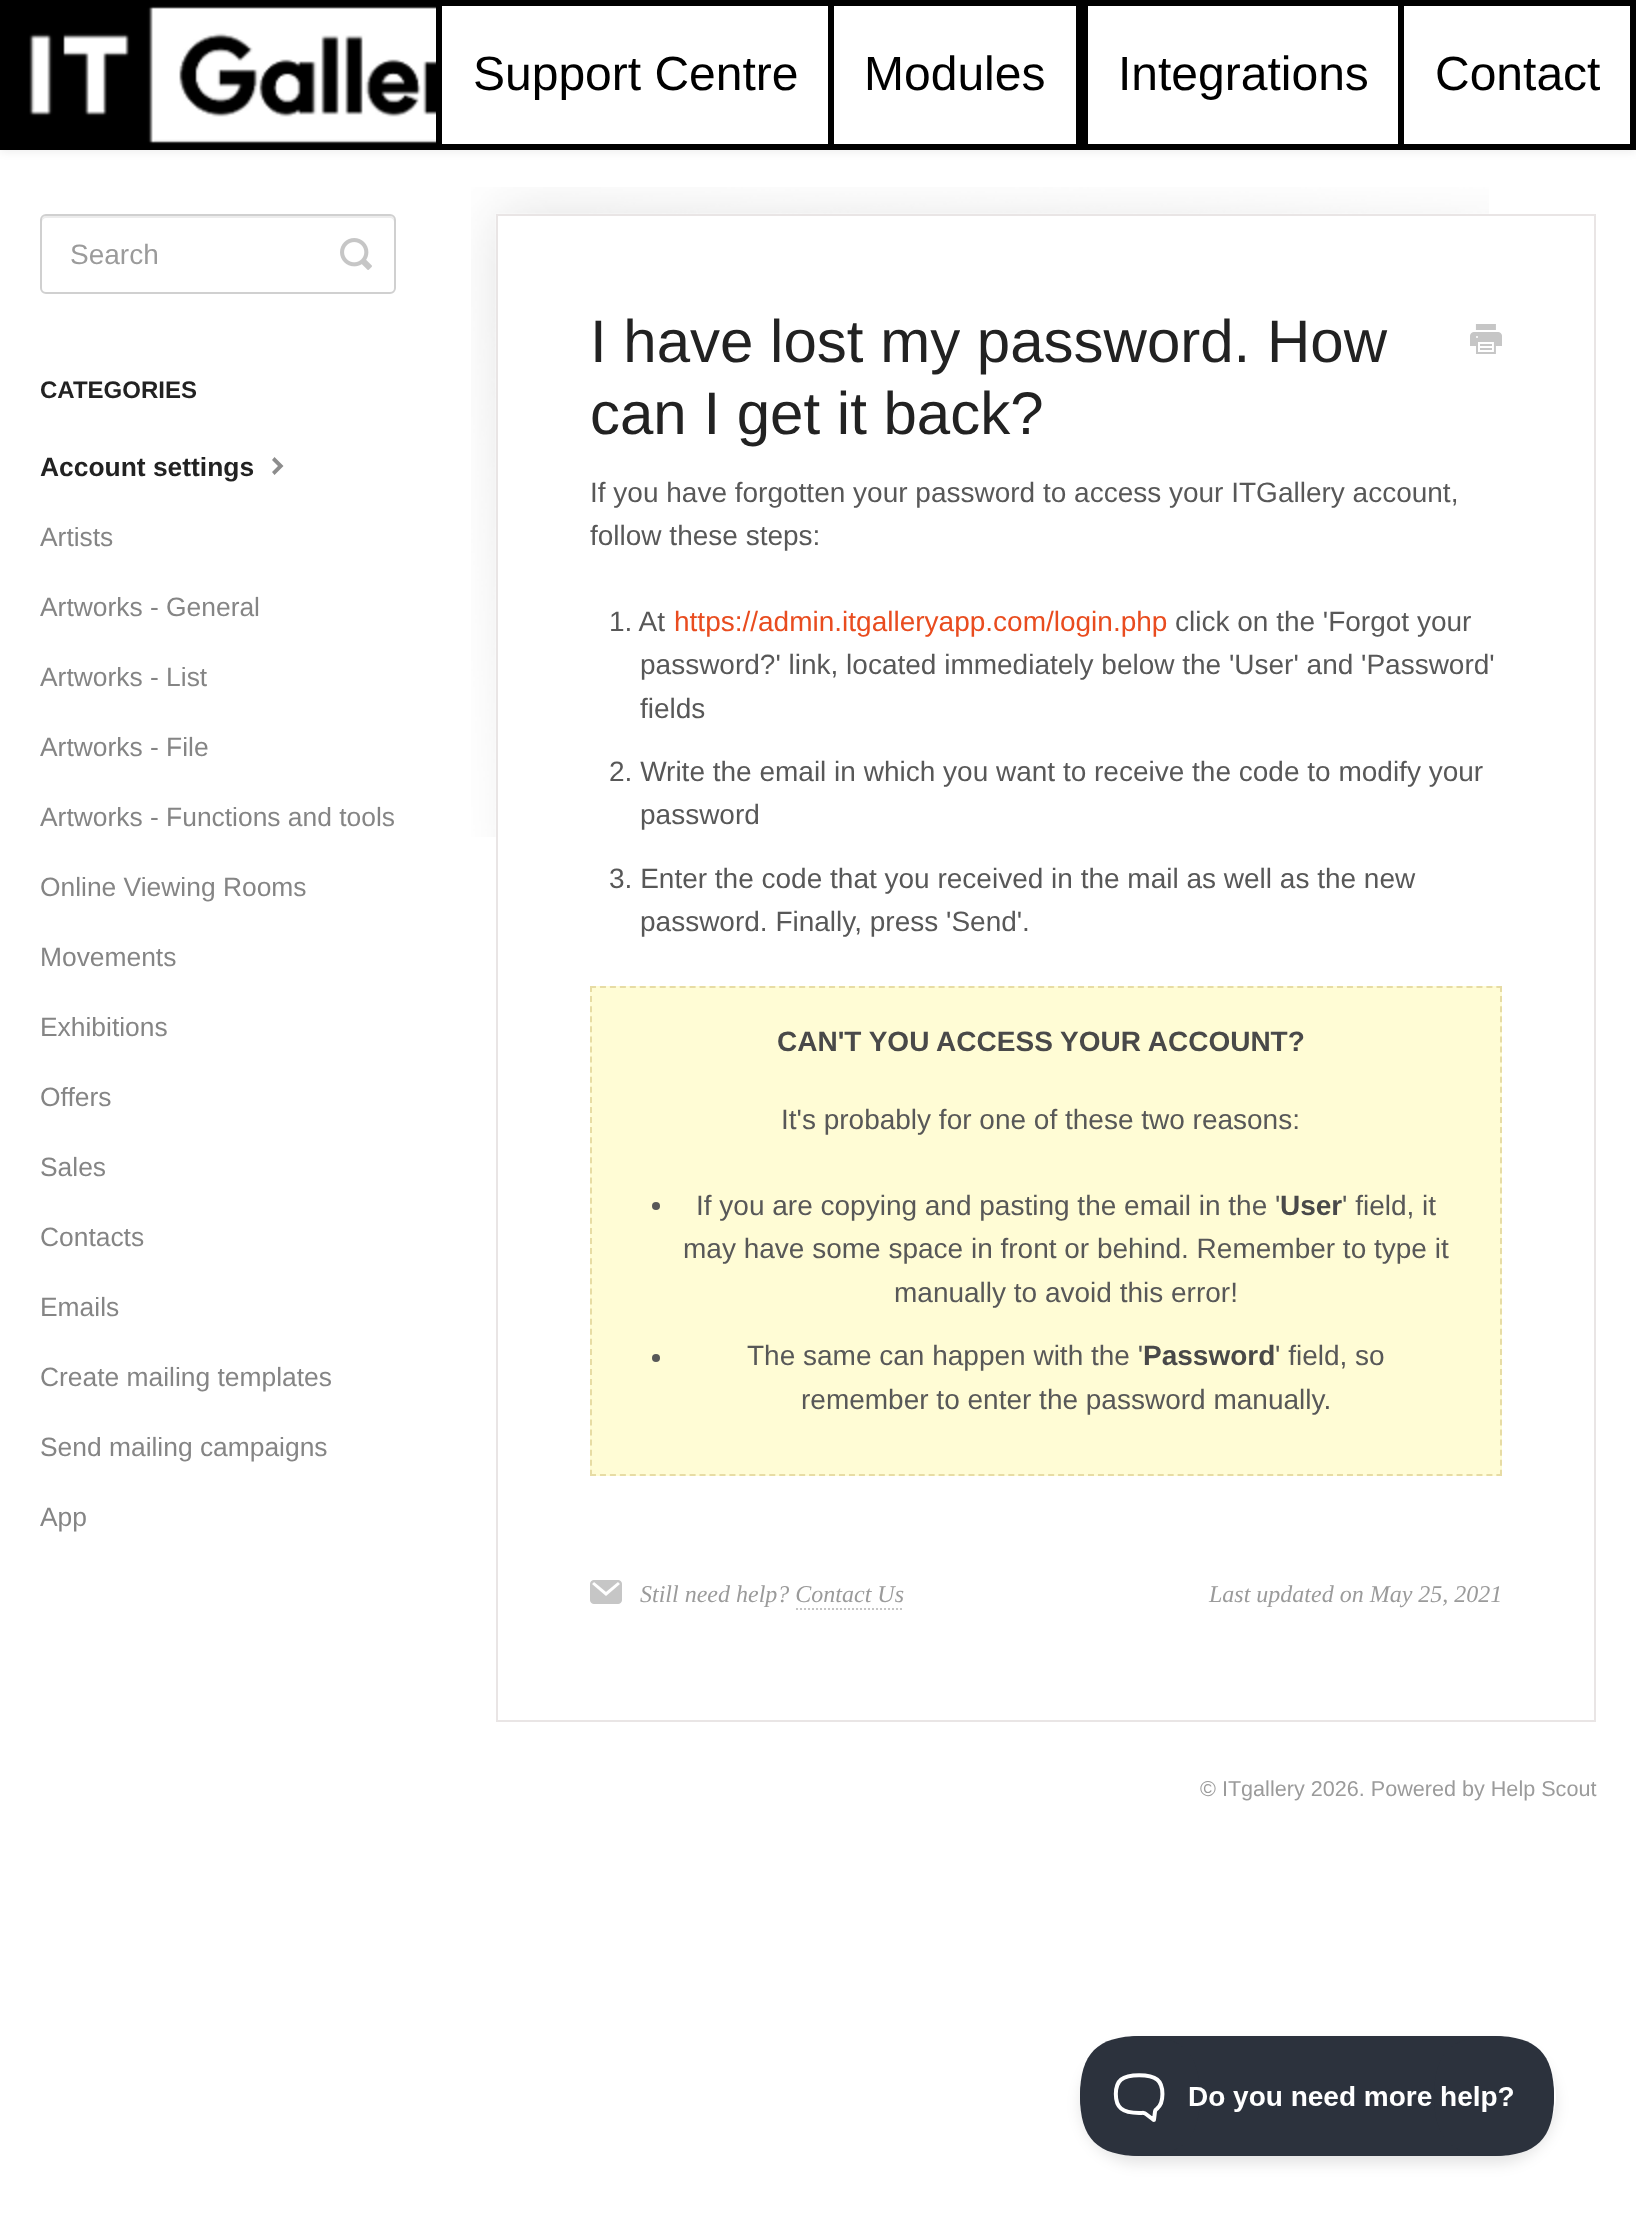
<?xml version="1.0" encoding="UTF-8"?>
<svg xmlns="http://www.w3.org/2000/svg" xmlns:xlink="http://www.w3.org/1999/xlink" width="1636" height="2235">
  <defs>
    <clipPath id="clip1"><path d="M 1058 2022 h 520 v 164 h -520 z m 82 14 h 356 c 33 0 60 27 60 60 c 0 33 -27 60 -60 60 h -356 c -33 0 -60 -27 -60 -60 c 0 -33 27 -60 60 -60 z" clip-rule="evenodd" /></clipPath>
  </defs>
  <rect width="100%" height="100%" fill="#ffffff" />
  <rect y="2" width="1636" height="150" fill="#000000" fill-opacity="0.07" filter="blur(4px)" />
  <rect x="3" y="3" width="1630" height="144" fill="none" stroke="#000000" stroke-width="6" />
  <image x="6" y="6" width="430" height="138" xlink:href="image1.png" />
  <rect x="442" y="6" width="386" height="138" fill="#ffffff" />
  <rect x="436" width="6" height="150" fill="#000000" />
  <rect x="831" y="3" width="248" height="144" fill="#ffffff" stroke="#000000" stroke-width="6" />
  <rect x="1088" y="6" width="310" height="138" fill="#ffffff" />
  <rect x="1082" width="6" height="150" fill="#000000" />
  <rect x="1401" y="3" width="232" height="144" fill="#ffffff" stroke="#000000" stroke-width="6" />
  <path d="M 46 218 h 344 c 2 0 4 2 4 4 v -2 c 0 -2 -2 -4 -4 -4 h -344 c -2 0 -4 2 -4 4 v 2 c 0 -2 2 -4 4 -4 z" fill="#ececec" />
  <rect x="41" y="215" width="354" height="78" rx="5" fill="none" stroke="#d0d0d0" stroke-width="2" />
  <image x="340" y="238" width="32" height="32" xlink:href="image2.png" />
  <path d="M 274.5 457 l -2.5 3 l 6 6 l -6 6 l 2.5 3 l 9 -9 z" fill="#8d8d8d" />
  <image x="471" y="187" width="1018" height="650" xlink:href="image3.png" />
  <rect x="497" y="215" width="1098" height="1506" fill="none" stroke="#e9e5e5" stroke-width="2" />
  <image x="1470" y="324" width="32" height="30" xlink:href="image4.png" />
  <rect x="590" y="986" width="912" height="490" fill="#fffcd5" />
  <path d="M 590 987 h 912" fill="none" stroke="#e7dca4" stroke-width="2" stroke-dasharray="6 3.96" />
  <path d="M 1501 986 v 490" fill="none" stroke="#e7dca4" stroke-width="2" stroke-dasharray="6 4.08" />
  <path d="M 590 1475 h 912" fill="none" stroke="#e7dca4" stroke-width="2" stroke-dasharray="6 3.96" />
  <path d="M 591 986 v 490" fill="none" stroke="#e7dca4" stroke-width="2" stroke-dasharray="6 4.08" />
  <circle cx="656" cy="1206" r="4" fill="#585858" />
  <circle cx="656" cy="1358" r="4" fill="#585858" />
  <image x="590" y="1580" width="32" height="24" xlink:href="image5.png" />
  <path d="M 796 1609 h 108" fill="none" stroke="#c5c5c5" stroke-width="2" stroke-dasharray="2 2" />
  <g clip-path="url(#clip1)">
    <rect x="1080" y="2044" width="476" height="120" rx="60" fill="#000000" fill-opacity="0.1" filter="blur(7px)" />
  </g>
  <image x="1080" y="2036" width="474" height="120" xlink:href="image6.png" />
  <text x="473" y="90" style="font-family: Liberation Sans; font-size: 48px; fill: #000000">Support Centre</text>
  <text x="864" y="90" style="font-family: Liberation Sans; font-size: 48px; fill: #000000">Modules</text>
  <text x="1118" y="90" style="font-family: Liberation Sans; font-size: 48px; fill: #000000">Integrations</text>
  <text x="1435" y="90" style="font-family: Liberation Sans; font-size: 48px; fill: #000000">Contact</text>
  <text x="70" y="264" style="font-family: Liberation Sans; font-size: 28px; fill: #9b9b9b">Search</text>
  <text x="40" y="398" style="font-family: Liberation Sans; font-size: 24px; font-weight: bold; fill: #222222">CATEGORIES</text>
  <text x="40" y="476" style="font-family: Liberation Sans; font-size: 26.4px; font-weight: bold; fill: #222222">Account settings</text>
  <text x="40" y="546" style="font-family: Liberation Sans; font-size: 26.4px; fill: #858585">Artists</text>
  <text x="40" y="616" style="font-family: Liberation Sans; font-size: 26.4px; fill: #858585">Artworks - General</text>
  <text x="40" y="686" style="font-family: Liberation Sans; font-size: 26.4px; fill: #858585">Artworks - List</text>
  <text x="40" y="756" style="font-family: Liberation Sans; font-size: 26.4px; fill: #858585">Artworks - File</text>
  <text x="40" y="826" style="font-family: Liberation Sans; font-size: 26.4px; fill: #858585">Artworks - Functions and tools</text>
  <text x="40" y="896" style="font-family: Liberation Sans; font-size: 26.4px; fill: #858585">Online Viewing Rooms</text>
  <text x="40" y="966" style="font-family: Liberation Sans; font-size: 26.4px; fill: #858585">Movements</text>
  <text x="40" y="1036" style="font-family: Liberation Sans; font-size: 26.4px; fill: #858585">Exhibitions</text>
  <text x="40" y="1106" style="font-family: Liberation Sans; font-size: 26.4px; fill: #858585">Offers</text>
  <text x="40" y="1176" style="font-family: Liberation Sans; font-size: 26.4px; fill: #858585">Sales</text>
  <text x="40" y="1246" style="font-family: Liberation Sans; font-size: 26.4px; fill: #858585">Contacts</text>
  <text x="40" y="1316" style="font-family: Liberation Sans; font-size: 26.4px; fill: #858585">Emails</text>
  <text x="40" y="1386" style="font-family: Liberation Sans; font-size: 26.4px; fill: #858585">Create mailing templates</text>
  <text x="40" y="1456" style="font-family: Liberation Sans; font-size: 26.4px; fill: #858585">Send mailing campaigns</text>
  <text x="40" y="1526" style="font-family: Liberation Sans; font-size: 26.4px; fill: #858585">App</text>
  <text x="590" y="362" style="font-family: Liberation Sans; font-size: 60px; fill: #222222">I have lost my password. How</text>
  <text x="590" y="434" style="font-family: Liberation Sans; font-size: 60px; fill: #222222">can I get it back?</text>
  <text x="590" y="502" style="font-family: Liberation Sans; font-size: 28px; fill: #585858">If you have forgotten your password to access your ITGallery account,</text>
  <text x="590" y="545" style="font-family: Liberation Sans; font-size: 28px; fill: #585858">follow these steps:</text>
  <text x="609" y="631" style="font-family: Liberation Sans; font-size: 28px; fill: #585858">1. At</text>
  <text x="674" y="631" style="font-family: Liberation Sans; font-size: 28px; fill: #e94c1f">https://admin.itgalleryapp.com/login.php</text>
  <text x="1175" y="631" style="font-family: Liberation Sans; font-size: 28px; fill: #585858">click on the 'Forgot your</text>
  <text x="640" y="674" style="font-family: Liberation Sans; font-size: 28px; fill: #585858">password?' link, located immediately below the 'User' and 'Password'</text>
  <text x="640" y="718" style="font-family: Liberation Sans; font-size: 28px; fill: #585858">fields</text>
  <text x="609" y="781" style="font-family: Liberation Sans; font-size: 28px; fill: #585858">2. Write the email in which you want to receive the code to modify your</text>
  <text x="640" y="824" style="font-family: Liberation Sans; font-size: 28px; fill: #585858">password</text>
  <text x="609" y="888" style="font-family: Liberation Sans; font-size: 28px; fill: #585858">3. Enter the code that you received in the mail as well as the new</text>
  <text x="640" y="931" style="font-family: Liberation Sans; font-size: 28px; fill: #585858">password. Finally, press 'Send'.</text>
  <text x="777" y="1051" style="font-family: Liberation Sans; font-size: 28px; font-weight: bold; fill: #494949">CAN'T YOU ACCESS YOUR ACCOUNT?</text>
  <text x="781" y="1129" style="font-family: Liberation Sans; font-size: 28px; fill: #585858">It's probably for one of these two reasons:</text>
  <text x="696" y="1215" style="font-family: Liberation Sans; font-size: 28px; fill: #585858">If you are copying and pasting the email in the '</text>
  <text x="1280" y="1215" style="font-family: Liberation Sans; font-size: 28px; font-weight: bold; fill: #494949">User</text>
  <text x="1342" y="1215" style="font-family: Liberation Sans; font-size: 28px; fill: #585858">' field, it</text>
  <text x="683" y="1258" style="font-family: Liberation Sans; font-size: 28px; fill: #585858">may have some space in front or behind. Remember to type it</text>
  <text x="894" y="1302" style="font-family: Liberation Sans; font-size: 28px; fill: #585858">manually to avoid this error!</text>
  <text x="747" y="1365" style="font-family: Liberation Sans; font-size: 28px; fill: #585858">The same can happen with the '</text>
  <text x="1143" y="1365" style="font-family: Liberation Sans; font-size: 28px; font-weight: bold; fill: #494949">Password</text>
  <text x="1275" y="1365" style="font-family: Liberation Sans; font-size: 28px; fill: #585858">' field, so</text>
  <text x="801" y="1409" style="font-family: Liberation Sans; font-size: 28px; fill: #585858">remember to enter the password manually.</text>
  <text x="640" y="1602" style="font-family: Liberation Serif; font-size: 24px; font-style: italic; fill: #9b9b9b">Still need help? Contact Us</text>
  <text x="1209" y="1602" style="font-family: Liberation Serif; font-size: 24px; font-style: italic; fill: #9b9b9b">Last updated on May 25, 2021</text>
  <text x="1200" y="1796" style="font-family: Liberation Sans; font-size: 21.6px; fill: #9b9b9b">© ITgallery 2026. Powered by Help Scout</text>
</svg>
